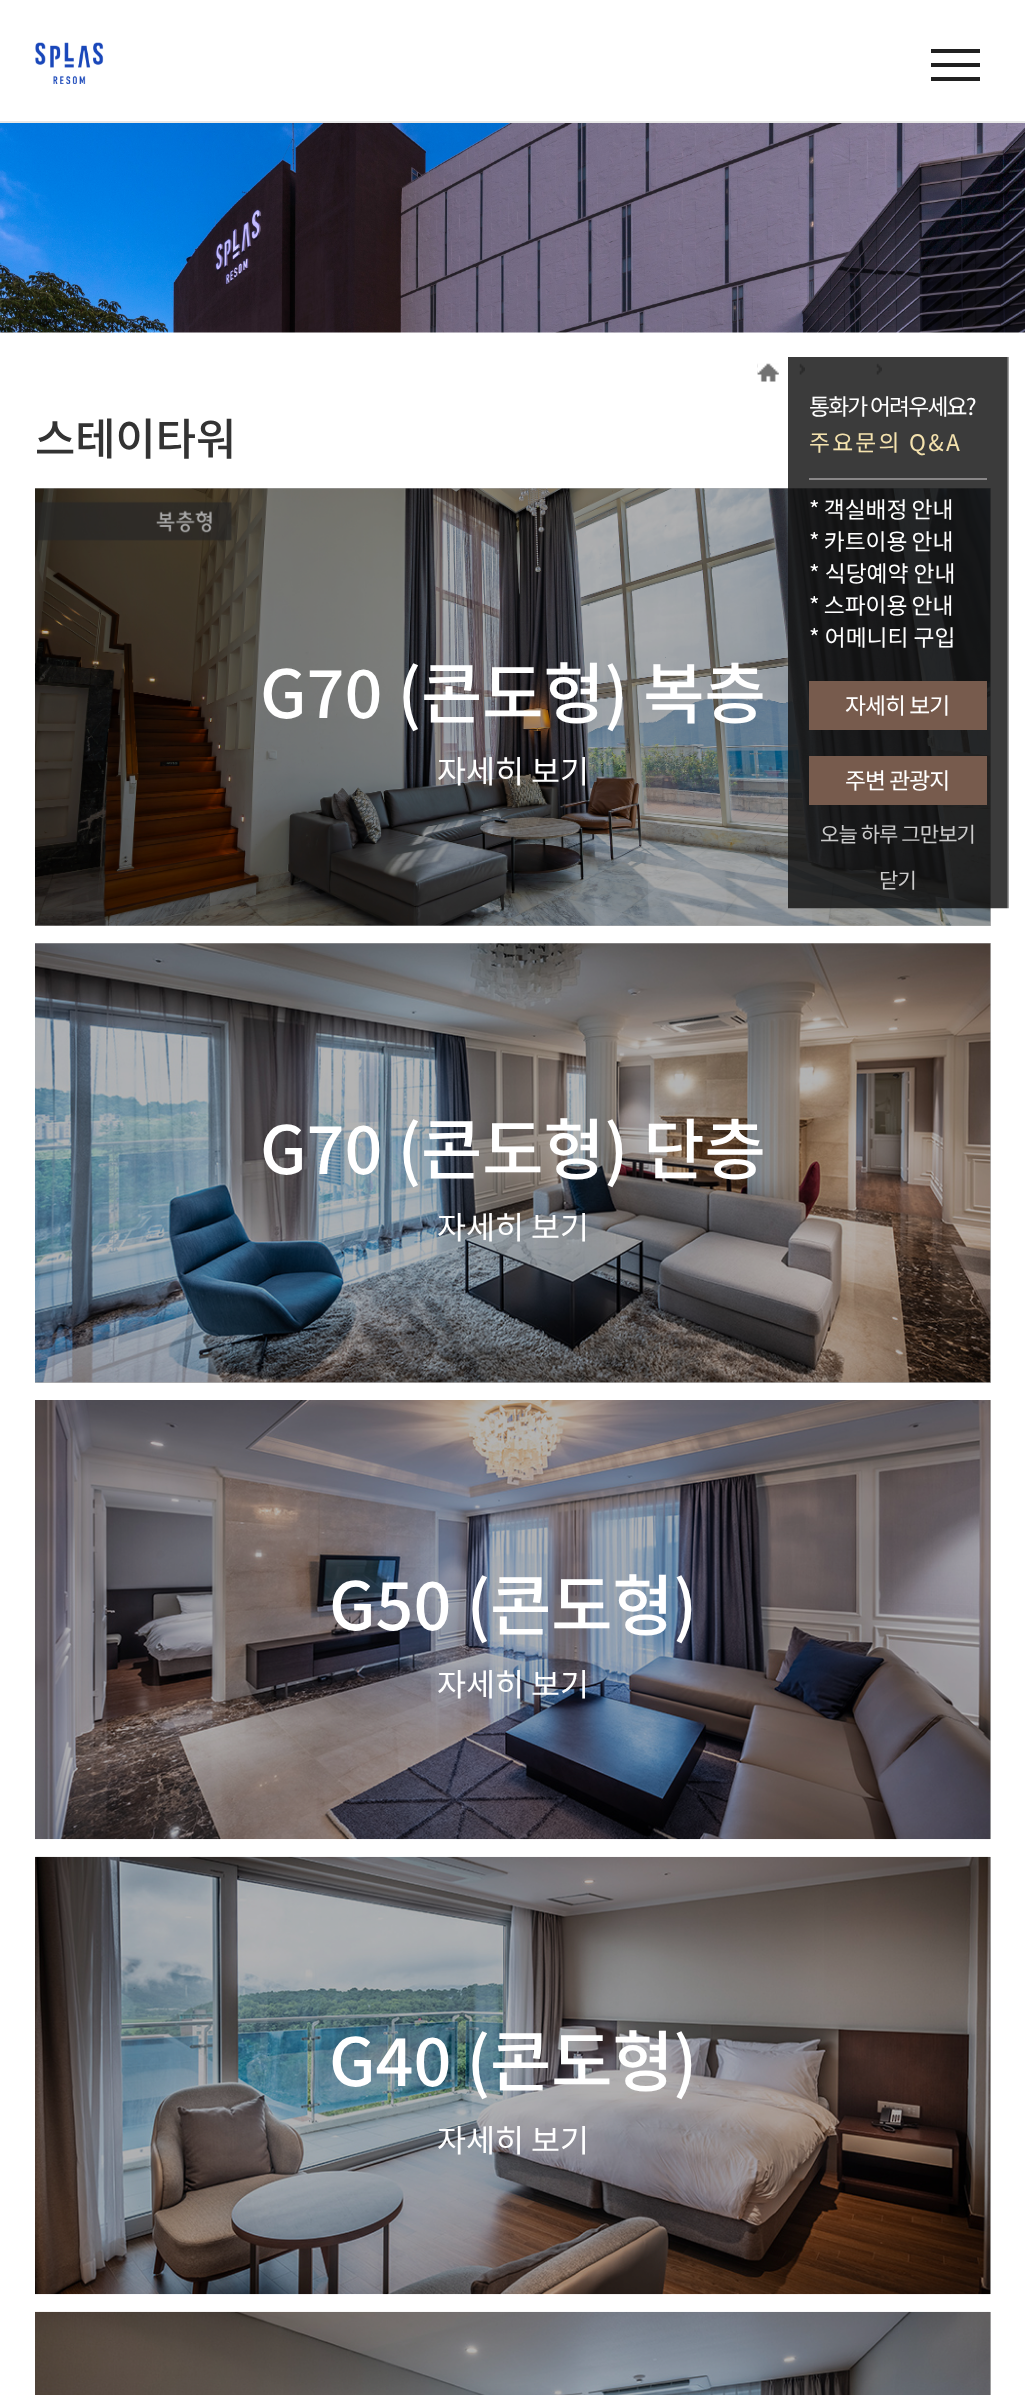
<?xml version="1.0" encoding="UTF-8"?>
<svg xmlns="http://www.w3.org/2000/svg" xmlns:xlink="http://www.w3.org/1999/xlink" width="1025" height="2395">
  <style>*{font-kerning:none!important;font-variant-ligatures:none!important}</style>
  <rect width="100%" height="100%" fill="#ffffff" />
  <rect x="990" y="2312" width="1" height="83" fill="#b3b3b3" />
  <rect x="990" y="1857" width="1" height="437" fill="#b3b3b3" />
  <rect x="990" y="1400" width="1" height="439" fill="#b3b3b3" />
  <rect x="35" y="943" width="956" height="440" fill="#b3b3b3" />
  <rect x="35" y="488" width="956" height="438" fill="#b3b3b3" />
  <rect y="121" width="1025" height="2" fill="#e8e8e8" />
  <image x="35" y="42" width="69" height="42" xlink:href="image1.png" />
  <rect x="931" y="49" width="49" height="4" fill="#202020" />
  <rect x="931" y="63" width="49" height="4" fill="#202020" />
  <rect x="931" y="77" width="49" height="4" fill="#202020" />
  <image x="0" y="123" width="1025" height="210" xlink:href="image2.png" />
  <image x="757" y="363" width="1" height="12" xlink:href="image3.png" />
  <image x="757" y="363" width="22" height="19" xlink:href="image4.png" />
  <image x="799" y="363" width="6" height="12" xlink:href="image5.png" />
  <image x="876" y="363" width="6" height="12" xlink:href="image6.png" />
  <image x="35" y="488" width="956" height="438" xlink:href="image7.png" />
  <image x="35" y="943" width="956" height="440" xlink:href="image8.png" />
  <image x="35" y="1400" width="956" height="440" xlink:href="image9.png" />
  <image x="35" y="1856" width="956" height="439" xlink:href="image10.png" />
  <image x="35" y="2311" width="956" height="84" xlink:href="image11.png" />
  <image x="788" y="357" width="221" height="552" xlink:href="image12.png" />
  <rect x="809" y="478" width="178" height="2" fill="#898788" />
  <rect x="809" y="681" width="178" height="49" fill="#775b4d" />
  <rect x="809" y="756" width="178" height="49" fill="#775b4d" />
  <text x="35" y="455" style="font-family: Noto Sans KR; font-size: 43.75px; font-weight: 500; fill: #333333">스테이타워</text>
  <text x="260" y="718" style="font-family: Noto Sans KR; font-size: 66.5px; font-weight: 500; fill: #ffffff">G70 (콘도형) 복층</text>
  <text x="437" y="783" style="font-family: Noto Sans KR; font-size: 31.5px; fill: #ffffff">자세히 보기</text>
  <text x="260" y="1174" style="font-family: Noto Sans KR; font-size: 66.5px; font-weight: 500; fill: #ffffff">G70 (콘도형) 단층</text>
  <text x="437" y="1239" style="font-family: Noto Sans KR; font-size: 31.5px; fill: #ffffff">자세히 보기</text>
  <text x="329" y="1630" style="font-family: Noto Sans KR; font-size: 66.5px; font-weight: 500; fill: #ffffff">G50 (콘도형)</text>
  <text x="437" y="1696" style="font-family: Noto Sans KR; font-size: 31.5px; fill: #ffffff">자세히 보기</text>
  <text x="329" y="2086" style="font-family: Noto Sans KR; font-size: 66.5px; font-weight: 500; fill: #ffffff">G40 (콘도형)</text>
  <text x="437" y="2152" style="font-family: Noto Sans KR; font-size: 31.5px; fill: #ffffff">자세히 보기</text>
  <text x="809" y="415" style="font-family: Noto Sans KR; font-size: 22.75px; letter-spacing: -1.75px; fill: #ffffff">통화가 어려우세요?</text>
  <text x="809" y="451" style="font-family: Noto Sans KR; font-size: 22.75px; letter-spacing: 2.25px; fill: #f4e2ae">주요문의 Q&amp;A</text>
  <text x="809" y="518" word-spacing="-1" style="font-family: Noto Sans KR; font-size: 22.75px; fill: #ffffff">* 객실배정 안내</text>
  <text x="809" y="550" word-spacing="-1" style="font-family: Noto Sans KR; font-size: 22.75px; fill: #ffffff">* 카트이용 안내</text>
  <text x="809" y="582" style="font-family: Noto Sans KR; font-size: 22.75px; fill: #ffffff">* 식당예약 안내</text>
  <text x="809" y="614" word-spacing="-1" style="font-family: Noto Sans KR; font-size: 22.75px; fill: #ffffff">* 스파이용 안내</text>
  <text x="809" y="646" style="font-family: Noto Sans KR; font-size: 22.75px; fill: #ffffff">* 어메니티 구입</text>
  <text x="845" y="714" style="font-family: Noto Sans KR; font-size: 22.75px; letter-spacing: -0.9px; fill: #ffffff">자세히 보기</text>
  <text x="845" y="789" style="font-family: Noto Sans KR; font-size: 22.75px; letter-spacing: -0.9px; fill: #ffffff">주변 관광지</text>
  <text x="820" y="842" style="font-family: Noto Sans KR; font-size: 21px; letter-spacing: -0.9px; fill: #cbcbcb">오늘 하루 그만보기</text>
  <text x="879" y="888" style="font-family: Noto Sans KR; font-size: 21px; letter-spacing: -0.9px; fill: #cbcbcb">닫기</text>
</svg>
